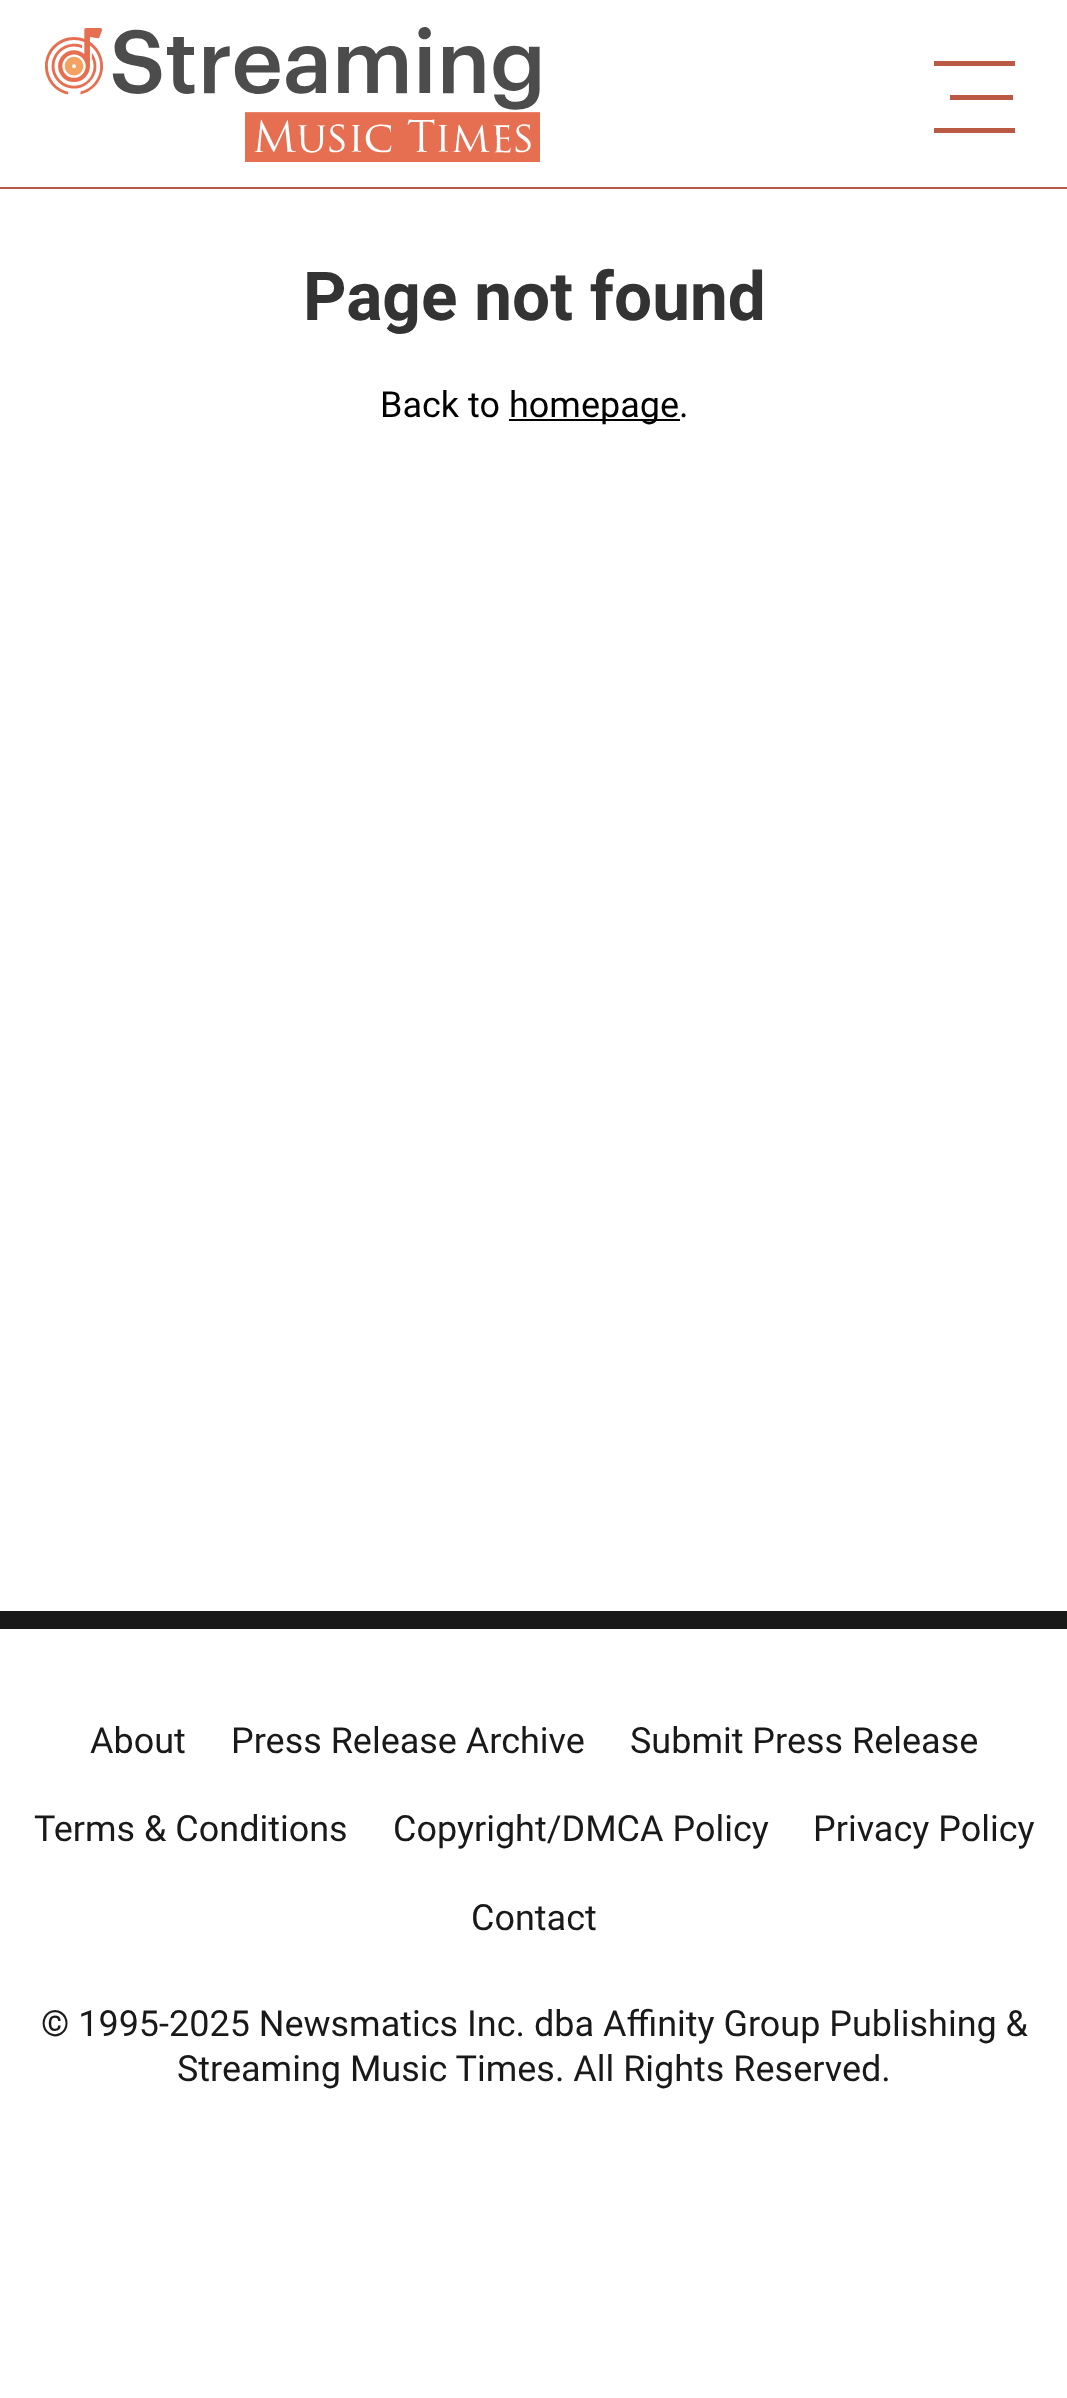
<?xml version="1.0" encoding="UTF-8"?>
<svg xmlns="http://www.w3.org/2000/svg" xmlns:xlink="http://www.w3.org/1999/xlink" width="1067" height="2398">
  <rect width="100%" height="100%" fill="#ffffff" />
  <image x="45" y="27" width="495" height="135" xlink:href="image1.png" />
  <rect x="934" y="61" width="81" height="5" fill="#bb5a44" />
  <rect x="950" y="95" width="63" height="5" fill="#bb5a44" />
  <rect x="934" y="128" width="81" height="5" fill="#bb5a44" />
  <rect y="187" width="1067" height="2" fill="#bb5a44" />
  <rect x="509" y="419" width="171" height="2" fill="#000000" />
  <rect y="1611" width="1067" height="18" fill="#191919" />
  <text x="303" y="320" style="font-family: Roboto; font-size: 67.5px; font-weight: bold; fill: #333333">Page not found</text>
  <text x="380" y="417" style="font-family: Roboto; font-size: 36px; fill: #000000">Back to</text>
  <text x="509" y="417" style="font-family: Roboto; font-size: 36px; fill: #000000">homepage.</text>
  <text x="90" y="1753" style="font-family: Roboto; font-size: 36px; fill: #191919">About</text>
  <text x="231" y="1753" style="font-family: Roboto; font-size: 36px; fill: #191919">Press Release Archive</text>
  <text x="630" y="1753" style="font-family: Roboto; font-size: 36px; fill: #191919">Submit Press Release</text>
  <text x="34" y="1841" style="font-family: Roboto; font-size: 36px; fill: #191919">Terms &amp; Conditions</text>
  <text x="393" y="1841" style="font-family: Roboto; font-size: 36px; fill: #191919">Copyright/DMCA Policy</text>
  <text x="813" y="1841" style="font-family: Roboto; font-size: 36px; fill: #191919">Privacy Policy</text>
  <text x="471" y="1930" style="font-family: Roboto; font-size: 36px; fill: #191919">Contact</text>
  <text x="41" y="2036" style="font-family: Roboto; font-size: 36px; fill: #191919">© 1995-2025 Newsmatics Inc. dba Affinity Group Publishing &amp;</text>
  <text x="177" y="2081" style="font-family: Roboto; font-size: 36px; fill: #191919">Streaming Music Times. All Rights Reserved.</text>
</svg>
